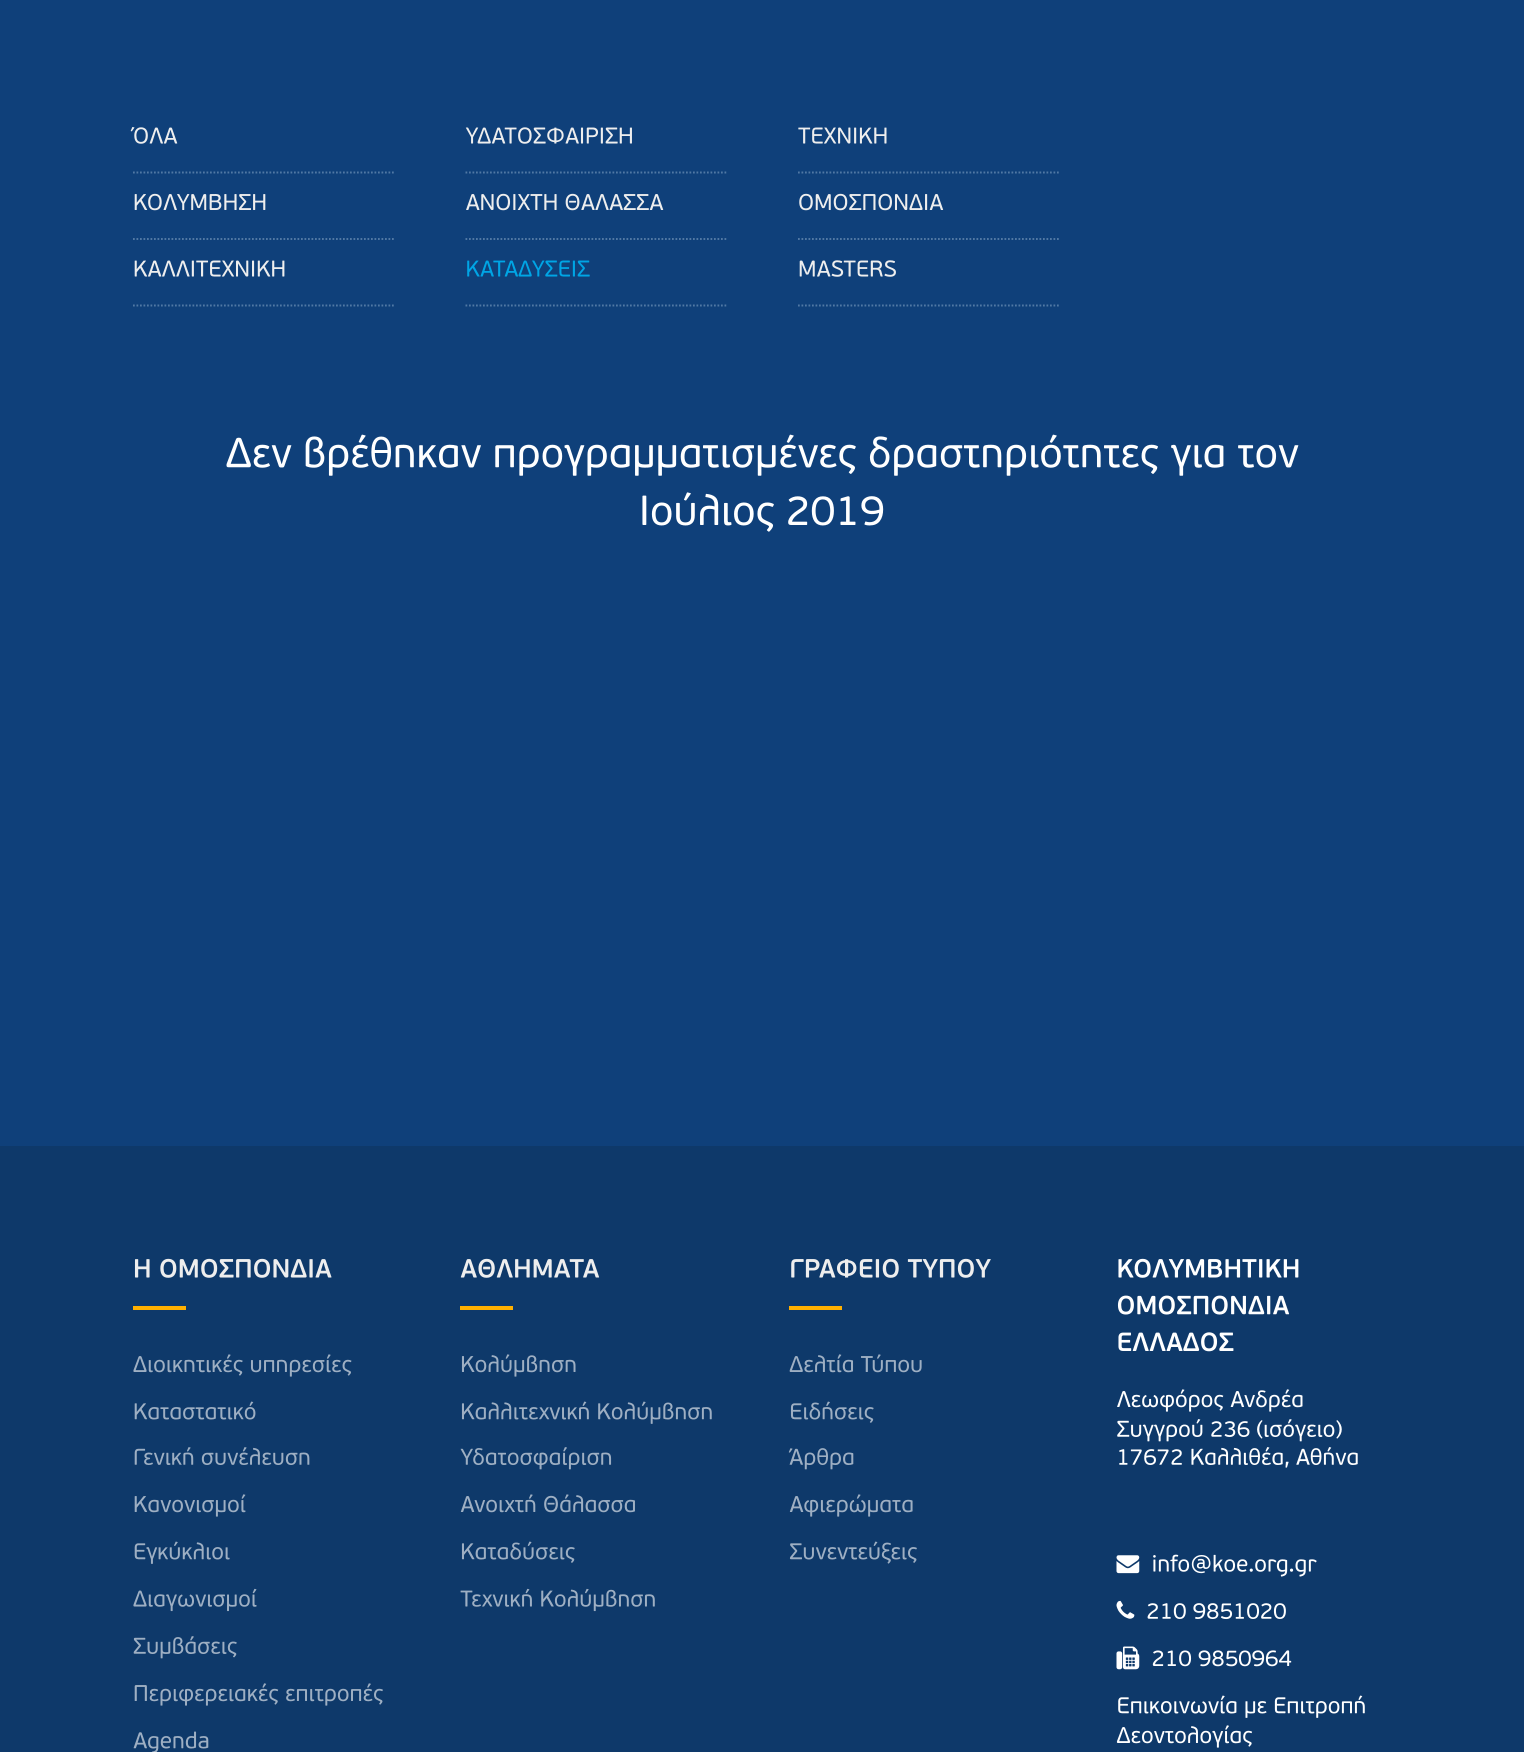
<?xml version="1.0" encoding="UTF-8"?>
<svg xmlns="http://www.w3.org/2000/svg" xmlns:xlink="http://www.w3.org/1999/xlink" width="1524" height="1752">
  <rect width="100%" height="100%" fill="#0f407a" />
  <path d="M 133 172.5 h 262.5" fill="none" stroke="#5178a4" stroke-width="1.8" stroke-dasharray="1.75 1.75" />
  <image x="130" y="127" width="48" height="17" xlink:href="image1.png" />
  <path d="M 465.5 172.5 h 262.5" fill="none" stroke="#5178a4" stroke-width="1.8" stroke-dasharray="1.75 1.75" />
  <image x="465" y="127" width="167" height="17" xlink:href="image2.png" />
  <path d="M 798 172.5 h 262.5" fill="none" stroke="#5178a4" stroke-width="1.8" stroke-dasharray="1.75 1.75" />
  <image x="798" y="127" width="89" height="17" xlink:href="image3.png" />
  <path d="M 133 239 h 262.5" fill="none" stroke="#5178a4" stroke-width="1.8" stroke-dasharray="1.75 1.75" />
  <image x="134" y="193" width="132" height="18" xlink:href="image4.png" />
  <path d="M 465.5 239 h 262.5" fill="none" stroke="#5178a4" stroke-width="1.8" stroke-dasharray="1.75 1.75" />
  <image x="466" y="193" width="198" height="18" xlink:href="image5.png" />
  <path d="M 798 239 h 262.5" fill="none" stroke="#5178a4" stroke-width="1.8" stroke-dasharray="1.75 1.75" />
  <image x="799" y="193" width="145" height="18" xlink:href="image6.png" />
  <path d="M 133 305.5 h 262.5" fill="none" stroke="#5178a4" stroke-width="1.8" stroke-dasharray="1.75 1.75" />
  <image x="134" y="260" width="151" height="17" xlink:href="image7.png" />
  <path d="M 465.5 305.5 h 262.5" fill="none" stroke="#5178a4" stroke-width="1.8" stroke-dasharray="1.75 1.75" />
  <image x="467" y="260" width="123" height="17" xlink:href="image8.png" />
  <path d="M 798 305.5 h 262.5" fill="none" stroke="#5178a4" stroke-width="1.8" stroke-dasharray="1.75 1.75" />
  <image x="799" y="260" width="97" height="17" xlink:href="image9.png" />
  <image x="226" y="434" width="630" height="42" xlink:href="image10.png" />
  <image x="869" y="434" width="430" height="42" xlink:href="image11.png" />
  <image x="642" y="492" width="132" height="40" xlink:href="image12.png" />
  <image x="788" y="496" width="96" height="30" xlink:href="image13.png" />
  <rect y="1146" width="1524" height="606" fill="#0e396a" />
  <image x="134" y="1258" width="198" height="20" xlink:href="image14.png" />
  <rect x="133" y="1306" width="53" height="4" fill="#ffb000" />
  <image x="133" y="1354" width="219" height="23" xlink:href="image15.png" />
  <image x="134" y="1401" width="122" height="19" xlink:href="image16.png" />
  <image x="134" y="1447" width="176" height="18" xlink:href="image17.png" />
  <image x="134" y="1494" width="112" height="23" xlink:href="image18.png" />
  <image x="134" y="1541" width="96" height="23" xlink:href="image19.png" />
  <image x="133" y="1588" width="124" height="24" xlink:href="image20.png" />
  <image x="133" y="1636" width="104" height="23" xlink:href="image21.png" />
  <image x="134" y="1683" width="249" height="23" xlink:href="image22.png" />
  <image x="133" y="1731" width="76" height="21" xlink:href="image23.png" />
  <image x="460" y="1258" width="140" height="20" xlink:href="image24.png" />
  <rect x="460" y="1306" width="53" height="4" fill="#ffb000" />
  <image x="461" y="1354" width="115" height="23" xlink:href="image25.png" />
  <image x="461" y="1401" width="251" height="23" xlink:href="image26.png" />
  <image x="460" y="1447" width="152" height="23" xlink:href="image27.png" />
  <image x="460" y="1494" width="175" height="19" xlink:href="image28.png" />
  <image x="461" y="1541" width="114" height="22" xlink:href="image29.png" />
  <image x="460" y="1588" width="195" height="24" xlink:href="image30.png" />
  <image x="791" y="1258" width="200" height="20" xlink:href="image31.png" />
  <rect x="789" y="1306" width="53" height="4" fill="#ffb000" />
  <image x="789" y="1354" width="133" height="19" xlink:href="image32.png" />
  <image x="790" y="1401" width="84" height="22" xlink:href="image33.png" />
  <image x="788" y="1448" width="66" height="22" xlink:href="image34.png" />
  <image x="789" y="1494" width="124" height="23" xlink:href="image35.png" />
  <image x="789" y="1541" width="128" height="23" xlink:href="image36.png" />
  <image x="1118" y="1258" width="181" height="20" xlink:href="image37.png" />
  <image x="1117" y="1295" width="173" height="20" xlink:href="image38.png" />
  <image x="1118" y="1332" width="116" height="20" xlink:href="image39.png" />
  <image x="1117" y="1389" width="186" height="23" xlink:href="image40.png" />
  <image x="1117" y="1419" width="225" height="23" xlink:href="image41.png" />
  <image x="1119" y="1447" width="239" height="21" xlink:href="image42.png" />
  <image x="1116" y="1555" width="24" height="19" xlink:href="image43.png" />
  <image x="1153" y="1554" width="164" height="23" xlink:href="image44.png" />
  <image x="1116" y="1600" width="19" height="19" xlink:href="image45.png" />
  <image x="1147" y="1603" width="139" height="17" xlink:href="image46.png" />
  <image x="1116" y="1646" width="24" height="24" xlink:href="image47.png" />
  <image x="1152" y="1650" width="140" height="17" xlink:href="image48.png" />
  <image x="1118" y="1695" width="247" height="23" xlink:href="image49.png" />
  <image x="1116" y="1725" width="137" height="23" xlink:href="image50.png" />
</svg>
